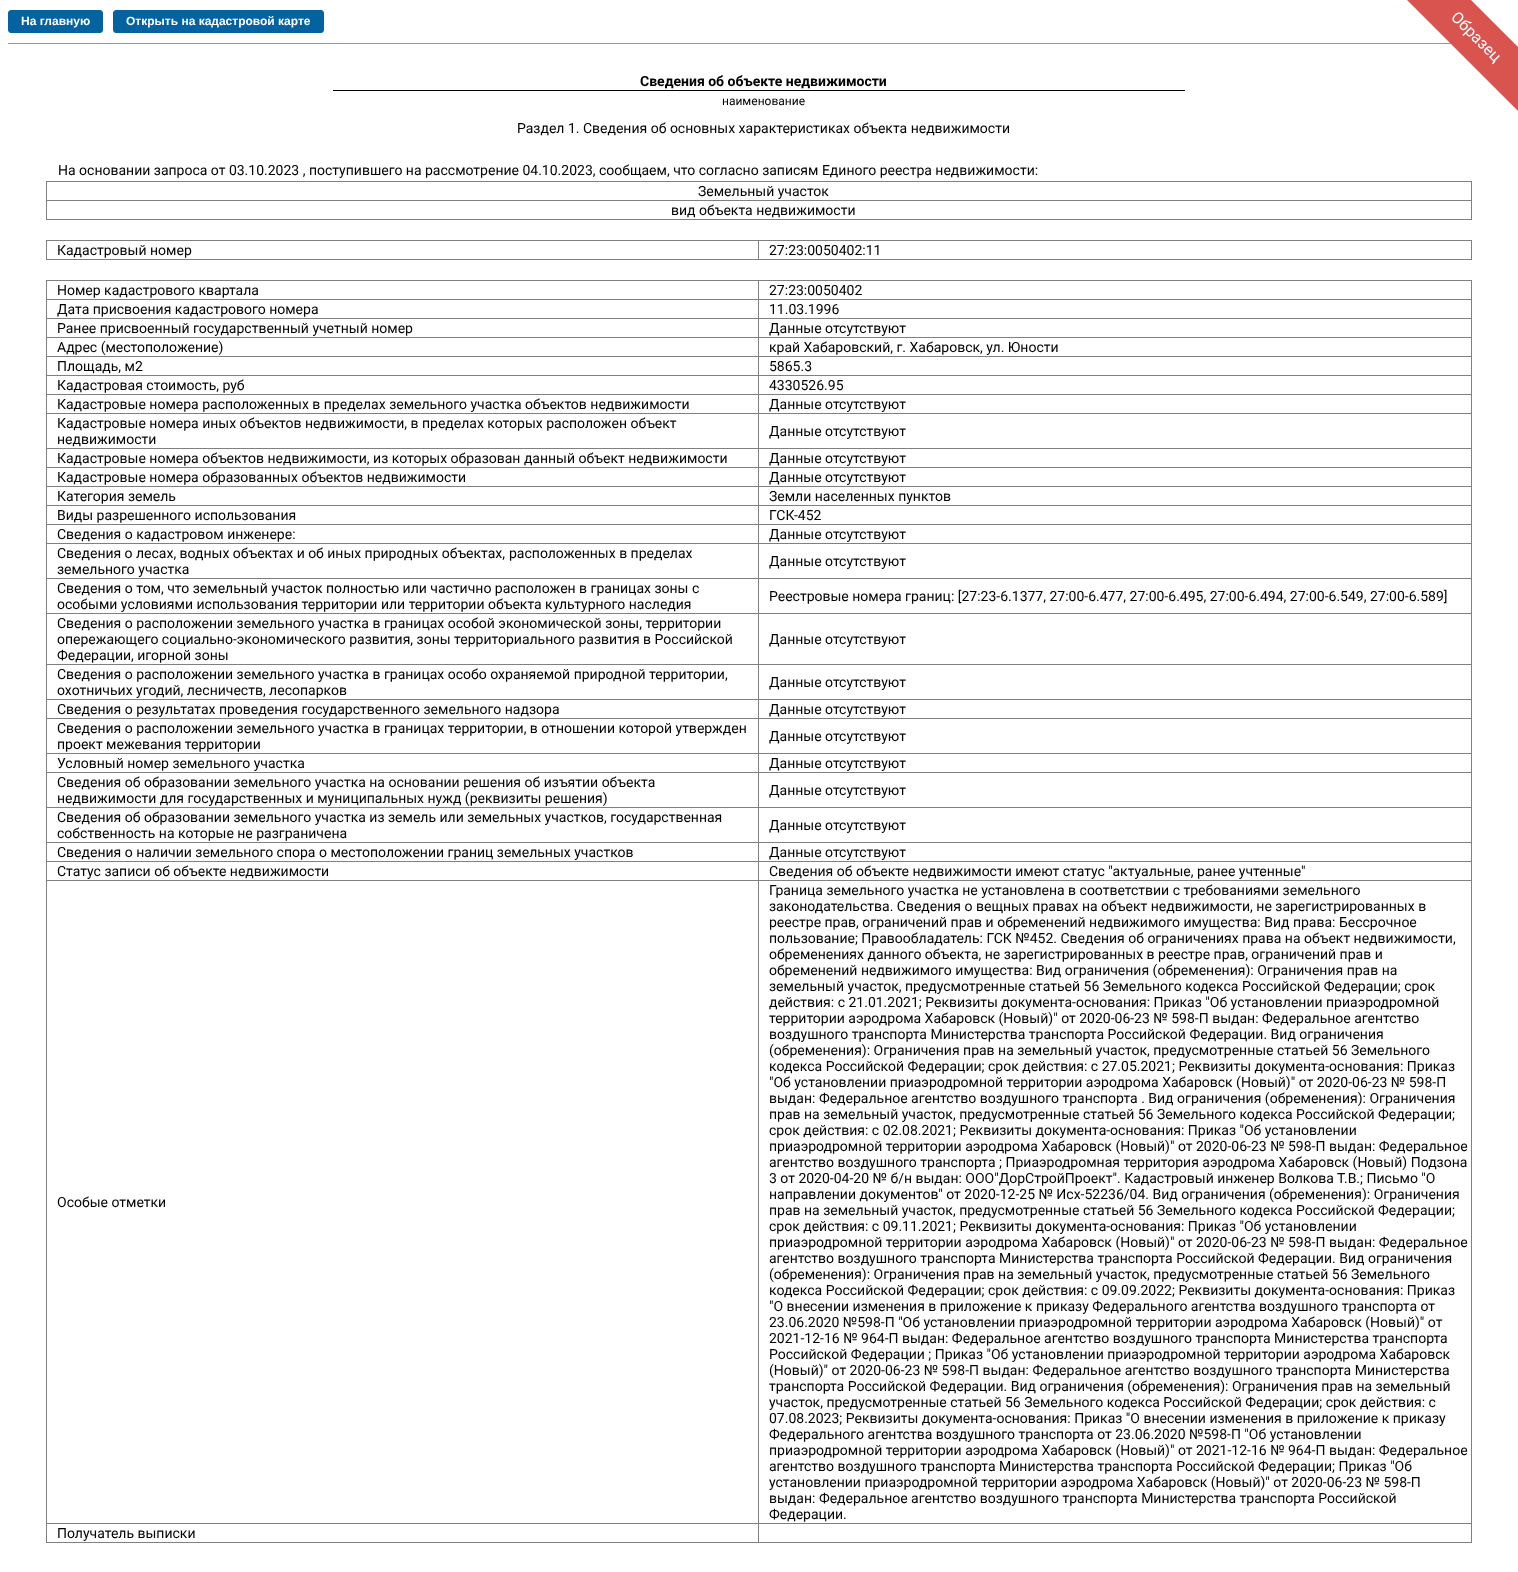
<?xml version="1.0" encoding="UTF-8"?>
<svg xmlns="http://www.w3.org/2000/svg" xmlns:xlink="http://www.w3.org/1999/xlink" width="1518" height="1572">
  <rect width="100%" height="100%" fill="#ffffff" />
  <rect x="8.5" y="10.5" width="94" height="22" rx="2.5" fill="#0362a0" stroke="#0362a0" />
  <rect x="113.5" y="10.5" width="210" height="22" rx="2.5" fill="#0362a0" stroke="#0362a0" />
  <rect x="8" y="43" width="1443" height="1" fill="#999999" />
  <path d="M 1130 -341 l 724 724 l -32 32 l -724 -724 z" fill="#d9534f" />
  <rect x="333" y="90" width="852" height="1" fill="#000000" />
  <rect x="46" y="181" width="1426" height="1" fill="#808080" />
  <rect x="1471" y="181" width="1" height="39" fill="#808080" />
  <rect x="46" y="219" width="1426" height="1" fill="#808080" />
  <rect x="46" y="181" width="1" height="39" fill="#808080" />
  <rect x="46" y="200" width="1426" height="1" fill="#808080" />
  <rect x="46" y="240" width="1426" height="1" fill="#808080" />
  <rect x="1471" y="240" width="1" height="20" fill="#808080" />
  <rect x="46" y="259" width="1426" height="1" fill="#808080" />
  <rect x="46" y="240" width="1" height="20" fill="#808080" />
  <rect x="758" y="240" width="1" height="20" fill="#808080" />
  <rect x="46" y="280" width="1426" height="1" fill="#808080" />
  <rect x="1471" y="280" width="1" height="1263" fill="#808080" />
  <rect x="46" y="1542" width="1426" height="1" fill="#808080" />
  <rect x="46" y="280" width="1" height="1263" fill="#808080" />
  <rect x="758" y="299" width="714" height="1" fill="#808080" />
  <rect x="758" y="318" width="714" height="1" fill="#808080" />
  <rect x="758" y="337" width="714" height="1" fill="#808080" />
  <rect x="758" y="356" width="714" height="1" fill="#808080" />
  <rect x="758" y="375" width="714" height="1" fill="#808080" />
  <rect x="758" y="394" width="714" height="1" fill="#808080" />
  <rect x="758" y="413" width="714" height="1" fill="#808080" />
  <rect x="758" y="448" width="714" height="1" fill="#808080" />
  <rect x="758" y="467" width="714" height="1" fill="#808080" />
  <rect x="758" y="486" width="714" height="1" fill="#808080" />
  <rect x="758" y="505" width="714" height="1" fill="#808080" />
  <rect x="758" y="524" width="714" height="1" fill="#808080" />
  <rect x="758" y="543" width="714" height="1" fill="#808080" />
  <rect x="758" y="578" width="714" height="1" fill="#808080" />
  <rect x="758" y="613" width="714" height="1" fill="#808080" />
  <rect x="758" y="664" width="714" height="1" fill="#808080" />
  <rect x="758" y="699" width="714" height="1" fill="#808080" />
  <rect x="758" y="718" width="714" height="1" fill="#808080" />
  <rect x="758" y="753" width="714" height="1" fill="#808080" />
  <rect x="758" y="772" width="714" height="1" fill="#808080" />
  <rect x="758" y="807" width="714" height="1" fill="#808080" />
  <rect x="758" y="842" width="714" height="1" fill="#808080" />
  <rect x="758" y="861" width="714" height="1" fill="#808080" />
  <rect x="758" y="880" width="714" height="1" fill="#808080" />
  <rect x="758" y="1523" width="714" height="1" fill="#808080" />
  <rect x="758" y="1523" width="1" height="20" fill="#808080" />
  <rect x="46" y="1523" width="713" height="1" fill="#808080" />
  <rect x="758" y="880" width="1" height="644" fill="#808080" />
  <rect x="46" y="880" width="713" height="1" fill="#808080" />
  <rect x="758" y="861" width="1" height="20" fill="#808080" />
  <rect x="46" y="861" width="713" height="1" fill="#808080" />
  <rect x="758" y="842" width="1" height="20" fill="#808080" />
  <rect x="46" y="842" width="713" height="1" fill="#808080" />
  <rect x="758" y="807" width="1" height="36" fill="#808080" />
  <rect x="46" y="807" width="713" height="1" fill="#808080" />
  <rect x="758" y="772" width="1" height="36" fill="#808080" />
  <rect x="46" y="772" width="713" height="1" fill="#808080" />
  <rect x="758" y="753" width="1" height="20" fill="#808080" />
  <rect x="46" y="753" width="713" height="1" fill="#808080" />
  <rect x="758" y="718" width="1" height="36" fill="#808080" />
  <rect x="46" y="718" width="713" height="1" fill="#808080" />
  <rect x="758" y="699" width="1" height="20" fill="#808080" />
  <rect x="46" y="699" width="713" height="1" fill="#808080" />
  <rect x="758" y="664" width="1" height="36" fill="#808080" />
  <rect x="46" y="664" width="713" height="1" fill="#808080" />
  <rect x="758" y="613" width="1" height="52" fill="#808080" />
  <rect x="46" y="613" width="713" height="1" fill="#808080" />
  <rect x="758" y="578" width="1" height="36" fill="#808080" />
  <rect x="46" y="578" width="713" height="1" fill="#808080" />
  <rect x="758" y="543" width="1" height="36" fill="#808080" />
  <rect x="46" y="543" width="713" height="1" fill="#808080" />
  <rect x="758" y="524" width="1" height="20" fill="#808080" />
  <rect x="46" y="524" width="713" height="1" fill="#808080" />
  <rect x="758" y="505" width="1" height="20" fill="#808080" />
  <rect x="46" y="505" width="713" height="1" fill="#808080" />
  <rect x="758" y="486" width="1" height="20" fill="#808080" />
  <rect x="46" y="486" width="713" height="1" fill="#808080" />
  <rect x="758" y="467" width="1" height="20" fill="#808080" />
  <rect x="46" y="467" width="713" height="1" fill="#808080" />
  <rect x="758" y="448" width="1" height="20" fill="#808080" />
  <rect x="46" y="448" width="713" height="1" fill="#808080" />
  <rect x="758" y="413" width="1" height="36" fill="#808080" />
  <rect x="46" y="413" width="713" height="1" fill="#808080" />
  <rect x="758" y="394" width="1" height="20" fill="#808080" />
  <rect x="46" y="394" width="713" height="1" fill="#808080" />
  <rect x="758" y="375" width="1" height="20" fill="#808080" />
  <rect x="46" y="375" width="713" height="1" fill="#808080" />
  <rect x="758" y="356" width="1" height="20" fill="#808080" />
  <rect x="46" y="356" width="713" height="1" fill="#808080" />
  <rect x="758" y="337" width="1" height="20" fill="#808080" />
  <rect x="46" y="337" width="713" height="1" fill="#808080" />
  <rect x="758" y="318" width="1" height="20" fill="#808080" />
  <rect x="46" y="318" width="713" height="1" fill="#808080" />
  <rect x="758" y="299" width="1" height="20" fill="#808080" />
  <rect x="46" y="299" width="713" height="1" fill="#808080" />
  <rect x="758" y="280" width="1" height="20" fill="#808080" />
  <text x="21" y="25" style="font-family: Liberation Sans; font-size: 12px; font-weight: bold; fill: #ffffff">На главную</text>
  <text x="126" y="25" style="font-family: Liberation Sans; font-size: 12px; font-weight: bold; fill: #ffffff">Открыть на кадастровой карте</text>
  <text x="1450" y="18" transform="rotate(45 1450 18)" style="font-family: Roboto; font-size: 16px; fill: #ffffff">Образец</text>
  <text x="640" y="86" style="font-family: Roboto; font-size: 14px; font-weight: bold; fill: #000000">Сведения об объекте недвижимости</text>
  <text x="722" y="105" style="font-family: Roboto; font-size: 12px; fill: #000000">наименование</text>
  <text x="517" y="133" style="font-family: Roboto; font-size: 14px; fill: #000000">Раздел 1. Сведения об основных характеристиках объекта недвижимости</text>
  <text x="58" y="175" style="font-family: Roboto; font-size: 14px; fill: #000000">На основании запроса от 03.10.2023 , поступившего на рассмотрение 04.10.2023, сообщаем, что согласно записям Единого реестра недвижимости:</text>
  <text x="698" y="196" style="font-family: Roboto; font-size: 14px; fill: #000000">Земельный участок</text>
  <text x="671" y="215" style="font-family: Roboto; font-size: 14px; fill: #000000">вид объекта недвижимости</text>
  <text x="57" y="255" style="font-family: Roboto; font-size: 14px; fill: #000000">Кадастровый номер</text>
  <text x="769" y="255" style="font-family: Roboto; font-size: 14px; fill: #000000">27:23:0050402:11</text>
  <text x="57" y="295" style="font-family: Roboto; font-size: 14px; fill: #000000">Номер кадастрового квартала</text>
  <text x="769" y="295" style="font-family: Roboto; font-size: 14px; fill: #000000">27:23:0050402</text>
  <text x="57" y="314" style="font-family: Roboto; font-size: 14px; fill: #000000">Дата присвоения кадастрового номера</text>
  <text x="769" y="314" style="font-family: Roboto; font-size: 14px; fill: #000000">11.03.1996</text>
  <text x="57" y="333" style="font-family: Roboto; font-size: 14px; fill: #000000">Ранее присвоенный государственный учетный номер</text>
  <text x="769" y="333" style="font-family: Roboto; font-size: 14px; fill: #000000">Данные отсутствуют</text>
  <text x="57" y="352" style="font-family: Roboto; font-size: 14px; fill: #000000">Адрес (местоположение)</text>
  <text x="769" y="352" style="font-family: Roboto; font-size: 14px; fill: #000000">край Хабаровский, г. Хабаровск, ул. Юности</text>
  <text x="57" y="371" style="font-family: Roboto; font-size: 14px; fill: #000000">Площадь, м2</text>
  <text x="769" y="371" style="font-family: Roboto; font-size: 14px; fill: #000000">5865.3</text>
  <text x="57" y="390" style="font-family: Roboto; font-size: 14px; fill: #000000">Кадастровая стоимость, руб</text>
  <text x="769" y="390" style="font-family: Roboto; font-size: 14px; fill: #000000">4330526.95</text>
  <text x="57" y="409" style="font-family: Roboto; font-size: 14px; fill: #000000">Кадастровые номера расположенных в пределах земельного участка объектов недвижимости</text>
  <text x="769" y="409" style="font-family: Roboto; font-size: 14px; fill: #000000">Данные отсутствуют</text>
  <text x="57" y="428" style="font-family: Roboto; font-size: 14px; fill: #000000">Кадастровые номера иных объектов недвижимости, в пределах которых расположен объект</text>
  <text x="57" y="444" style="font-family: Roboto; font-size: 14px; fill: #000000">недвижимости</text>
  <text x="769" y="436" style="font-family: Roboto; font-size: 14px; fill: #000000">Данные отсутствуют</text>
  <text x="57" y="463" style="font-family: Roboto; font-size: 14px; fill: #000000">Кадастровые номера объектов недвижимости, из которых образован данный объект недвижимости</text>
  <text x="769" y="463" style="font-family: Roboto; font-size: 14px; fill: #000000">Данные отсутствуют</text>
  <text x="57" y="482" style="font-family: Roboto; font-size: 14px; fill: #000000">Кадастровые номера образованных объектов недвижимости</text>
  <text x="769" y="482" style="font-family: Roboto; font-size: 14px; fill: #000000">Данные отсутствуют</text>
  <text x="57" y="501" style="font-family: Roboto; font-size: 14px; fill: #000000">Категория земель</text>
  <text x="769" y="501" style="font-family: Roboto; font-size: 14px; fill: #000000">Земли населенных пунктов</text>
  <text x="57" y="520" style="font-family: Roboto; font-size: 14px; fill: #000000">Виды разрешенного использования</text>
  <text x="769" y="520" style="font-family: Roboto; font-size: 14px; fill: #000000">ГСК-452</text>
  <text x="57" y="539" style="font-family: Roboto; font-size: 14px; fill: #000000">Сведения о кадастровом инженере:</text>
  <text x="769" y="539" style="font-family: Roboto; font-size: 14px; fill: #000000">Данные отсутствуют</text>
  <text x="57" y="558" word-spacing="-0.1" style="font-family: Roboto; font-size: 14px; fill: #000000">Cведения о лесах, водных объектах и об иных природных объектах,</text>
  <text x="509" y="558" style="font-family: Roboto; font-size: 14px; fill: #000000">расположенных в пределах</text>
  <text x="57" y="574" style="font-family: Roboto; font-size: 14px; fill: #000000">земельного участка</text>
  <text x="769" y="566" style="font-family: Roboto; font-size: 14px; fill: #000000">Данные отсутствуют</text>
  <text x="57" y="593" style="font-family: Roboto; font-size: 14px; fill: #000000">Сведения о том, что земельный участок полностью или частично расположен в границах зоны с</text>
  <text x="57" y="609" style="font-family: Roboto; font-size: 14px; fill: #000000">особыми условиями использования территории или территории объекта культурного наследия</text>
  <text x="769" y="601" style="font-family: Roboto; font-size: 14px; fill: #000000">Реестровые номера границ: [27:23-6.1377, 27:00-6.477, 27:00-6.495, 27:00-6.494, 27:00-6.549, 27:00-6.589]</text>
  <text x="57" y="628" style="font-family: Roboto; font-size: 14px; fill: #000000">Сведения о расположении земельного участка в границах особой экономической зоны, территории</text>
  <text x="57" y="644" style="font-family: Roboto; font-size: 14px; fill: #000000">опережающего социально-экономического развития, зоны территориального развития в Российской</text>
  <text x="57" y="660" style="font-family: Roboto; font-size: 14px; fill: #000000">Федерации, игорной зоны</text>
  <text x="769" y="644" style="font-family: Roboto; font-size: 14px; fill: #000000">Данные отсутствуют</text>
  <text x="57" y="679" style="font-family: Roboto; font-size: 14px; fill: #000000">Сведения о расположении земельного участка в границах особо охраняемой природной территории,</text>
  <text x="57" y="695" style="font-family: Roboto; font-size: 14px; fill: #000000">охотничьих угодий, лесничеств, лесопарков</text>
  <text x="769" y="687" style="font-family: Roboto; font-size: 14px; fill: #000000">Данные отсутствуют</text>
  <text x="57" y="714" style="font-family: Roboto; font-size: 14px; fill: #000000">Сведения о результатах проведения государственного земельного надзора</text>
  <text x="769" y="714" style="font-family: Roboto; font-size: 14px; fill: #000000">Данные отсутствуют</text>
  <text x="57" y="733" style="font-family: Roboto; font-size: 14px; fill: #000000">Сведения о расположении земельного участка в границах территории, в отношении которой утвержден</text>
  <text x="57" y="749" style="font-family: Roboto; font-size: 14px; fill: #000000">проект межевания территории</text>
  <text x="769" y="741" style="font-family: Roboto; font-size: 14px; fill: #000000">Данные отсутствуют</text>
  <text x="57" y="768" style="font-family: Roboto; font-size: 14px; fill: #000000">Условный номер земельного участка</text>
  <text x="769" y="768" style="font-family: Roboto; font-size: 14px; fill: #000000">Данные отсутствуют</text>
  <text x="57" y="787" style="font-family: Roboto; font-size: 14px; fill: #000000">Сведения об образовании земельного участка на основании решения об изъятии объекта</text>
  <text x="57" y="803" style="font-family: Roboto; font-size: 14px; fill: #000000">недвижимости для государственных и муниципальных нужд (реквизиты решения)</text>
  <text x="769" y="795" style="font-family: Roboto; font-size: 14px; fill: #000000">Данные отсутствуют</text>
  <text x="57" y="822" style="font-family: Roboto; font-size: 14px; fill: #000000">Сведения об образовании земельного участка из земель или земельных участков, государственная</text>
  <text x="57" y="838" style="font-family: Roboto; font-size: 14px; fill: #000000">собственность на которые не разграничена</text>
  <text x="769" y="830" style="font-family: Roboto; font-size: 14px; fill: #000000">Данные отсутствуют</text>
  <text x="57" y="857" style="font-family: Roboto; font-size: 14px; fill: #000000">Сведения о наличии земельного спора о местоположении границ земельных участков</text>
  <text x="769" y="857" style="font-family: Roboto; font-size: 14px; fill: #000000">Данные отсутствуют</text>
  <text x="57" y="876" style="font-family: Roboto; font-size: 14px; fill: #000000">Статус записи об объекте недвижимости</text>
  <text x="769" y="876" style="font-family: Roboto; font-size: 14px; fill: #000000">Сведения об объекте недвижимости имеют статус "актуальные, ранее учтенные"</text>
  <text x="57" y="1207" style="font-family: Roboto; font-size: 14px; fill: #000000">Особые отметки</text>
  <text x="769" y="895" style="font-family: Roboto; font-size: 14px; fill: #000000">Граница земельного участка не установлена в соответствии с требованиями земельного</text>
  <text x="769" y="911" style="font-family: Roboto; font-size: 14px; fill: #000000">законодательства. Сведения о вещных правах на объект недвижимости, не зарегистрированных в</text>
  <text x="769" y="927" style="font-family: Roboto; font-size: 14px; fill: #000000">реестре прав, ограничений прав и обременений недвижимого имущества: Вид права: Бессрочное</text>
  <text x="769" y="943" style="font-family: Roboto; font-size: 14px; fill: #000000">пользование; Правообладатель: ГСК №452. Сведения об ограничениях права на объект недвижимости,</text>
  <text x="769" y="959" style="font-family: Roboto; font-size: 14px; fill: #000000">обременениях данного объекта, не зарегистрированных в реестре прав, ограничений прав и</text>
  <text x="769" y="975" style="font-family: Roboto; font-size: 14px; fill: #000000">обременений недвижимого имущества: Вид ограничения (обременения): Ограничения прав на</text>
  <text x="769" y="991" style="font-family: Roboto; font-size: 14px; fill: #000000">земельный участок, предусмотренные статьей 56 Земельного кодекса Российской Федерации; срок</text>
  <text x="769" y="1007" style="font-family: Roboto; font-size: 14px; fill: #000000">действия: c 21.01.2021; Реквизиты документа-основания: Приказ "Об установлении приаэродромной</text>
  <text x="769" y="1023" style="font-family: Roboto; font-size: 14px; fill: #000000">территории аэродрома Хабаровск (Новый)" от 2020-06-23 № 598-П выдан: Федеральное агентство</text>
  <text x="769" y="1039" style="font-family: Roboto; font-size: 14px; fill: #000000">воздушного транспорта Министерства транспорта Российской Федерации. Вид ограничения</text>
  <text x="769" y="1055" style="font-family: Roboto; font-size: 14px; fill: #000000">(обременения): Ограничения прав на земельный участок, предусмотренные статьей 56 Земельного</text>
  <text x="769" y="1071" style="font-family: Roboto; font-size: 14px; fill: #000000">кодекса Российской Федерации; срок действия: c 27.05.2021; Реквизиты документа-основания: Приказ</text>
  <text x="769" y="1087" style="font-family: Roboto; font-size: 14px; fill: #000000">"Об установлении приаэродромной территории аэродрома Хабаровск (Новый)" от 2020-06-23 № 598-П</text>
  <text x="769" y="1103" style="font-family: Roboto; font-size: 14px; fill: #000000">выдан: Федеральное агентство воздушного транспорта . Вид ограничения (обременения): Ограничения</text>
  <text x="769" y="1119" style="font-family: Roboto; font-size: 14px; fill: #000000">прав на земельный участок, предусмотренные статьей 56 Земельного кодекса Российской Федерации;</text>
  <text x="769" y="1135" style="font-family: Roboto; font-size: 14px; fill: #000000">срок действия: c 02.08.2021; Реквизиты документа-основания: Приказ "Об установлении</text>
  <text x="769" y="1151" style="font-family: Roboto; font-size: 14px; fill: #000000">приаэродромной территории аэродрома Хабаровск (Новый)" от 2020-06-23 № 598-П выдан: Федеральное</text>
  <text x="769" y="1167" style="font-family: Roboto; font-size: 14px; fill: #000000">агентство воздушного транспорта ; Приаэродромная территория аэродрома Хабаровск (Новый) Подзона</text>
  <text x="769" y="1183" style="font-family: Roboto; font-size: 14px; fill: #000000">3 от 2020-04-20 № б/н выдан: ООО"ДорСтройПроект". Кадастровый инженер Волкова Т.В.; Письмо "О</text>
  <text x="769" y="1199" style="font-family: Roboto; font-size: 14px; fill: #000000">направлении документов" от 2020-12-25 № Исх-52236/04. Вид ограничения (обременения): Ограничения</text>
  <text x="769" y="1215" style="font-family: Roboto; font-size: 14px; fill: #000000">прав на земельный участок, предусмотренные статьей 56 Земельного кодекса Российской Федерации;</text>
  <text x="769" y="1231" style="font-family: Roboto; font-size: 14px; fill: #000000">срок действия: c 09.11.2021; Реквизиты документа-основания: Приказ "Об установлении</text>
  <text x="769" y="1247" style="font-family: Roboto; font-size: 14px; fill: #000000">приаэродромной территории аэродрома Хабаровск (Новый)" от 2020-06-23 № 598-П выдан: Федеральное</text>
  <text x="769" y="1263" style="font-family: Roboto; font-size: 14px; fill: #000000">агентство воздушного транспорта Министерства транспорта Российской Федерации. Вид ограничения</text>
  <text x="769" y="1279" style="font-family: Roboto; font-size: 14px; fill: #000000">(обременения): Ограничения прав на земельный участок, предусмотренные статьей 56 Земельного</text>
  <text x="769" y="1295" style="font-family: Roboto; font-size: 14px; fill: #000000">кодекса Российской Федерации; срок действия: c 09.09.2022; Реквизиты документа-основания: Приказ</text>
  <text x="769" y="1311" style="font-family: Roboto; font-size: 14px; fill: #000000">"О внесении изменения в приложение к приказу Федерального агентства воздушного транспорта от</text>
  <text x="769" y="1327" style="font-family: Roboto; font-size: 14px; fill: #000000">23.06.2020 №598-П "Об установлении приаэродромной территории аэродрома Хабаровск (Новый)" от</text>
  <text x="769" y="1343" style="font-family: Roboto; font-size: 14px; fill: #000000">2021-12-16 № 964-П выдан: Федеральное агентство воздушного транспорта Министерства транспорта</text>
  <text x="769" y="1359" style="font-family: Roboto; font-size: 14px; fill: #000000">Российской Федерации ; Приказ "Об установлении приаэродромной территории аэродрома Хабаровск</text>
  <text x="769" y="1375" style="font-family: Roboto; font-size: 14px; fill: #000000">(Новый)" от 2020-06-23 № 598-П выдан: Федеральное агентство воздушного транспорта Министерства</text>
  <text x="769" y="1391" style="font-family: Roboto; font-size: 14px; fill: #000000">транспорта Российской Федерации. Вид ограничения (обременения): Ограничения прав на земельный</text>
  <text x="769" y="1407" style="font-family: Roboto; font-size: 14px; fill: #000000">участок, предусмотренные статьей 56 Земельного кодекса Российской Федерации; срок действия: c</text>
  <text x="769" y="1423" style="font-family: Roboto; font-size: 14px; fill: #000000">07.08.2023; Реквизиты документа-основания: Приказ "О внесении изменения в приложение к приказу</text>
  <text x="769" y="1439" style="font-family: Roboto; font-size: 14px; fill: #000000">Федерального агентства воздушного транспорта от 23.06.2020 №598-П "Об установлении</text>
  <text x="769" y="1455" style="font-family: Roboto; font-size: 14px; fill: #000000">приаэродромной территории аэродрома Хабаровск (Новый)" от 2021-12-16 № 964-П выдан: Федеральное</text>
  <text x="769" y="1471" style="font-family: Roboto; font-size: 14px; fill: #000000">агентство воздушного транспорта Министерства транспорта Российской Федерации; Приказ "Об</text>
  <text x="769" y="1487" style="font-family: Roboto; font-size: 14px; fill: #000000">установлении приаэродромной территории аэродрома Хабаровск (Новый)" от 2020-06-23 № 598-П</text>
  <text x="769" y="1503" style="font-family: Roboto; font-size: 14px; fill: #000000">выдан: Федеральное агентство воздушного транспорта Министерства транспорта Российской</text>
  <text x="769" y="1519" style="font-family: Roboto; font-size: 14px; fill: #000000">Федерации.</text>
  <text x="57" y="1538" style="font-family: Roboto; font-size: 14px; fill: #000000">Получатель выписки</text>
</svg>
